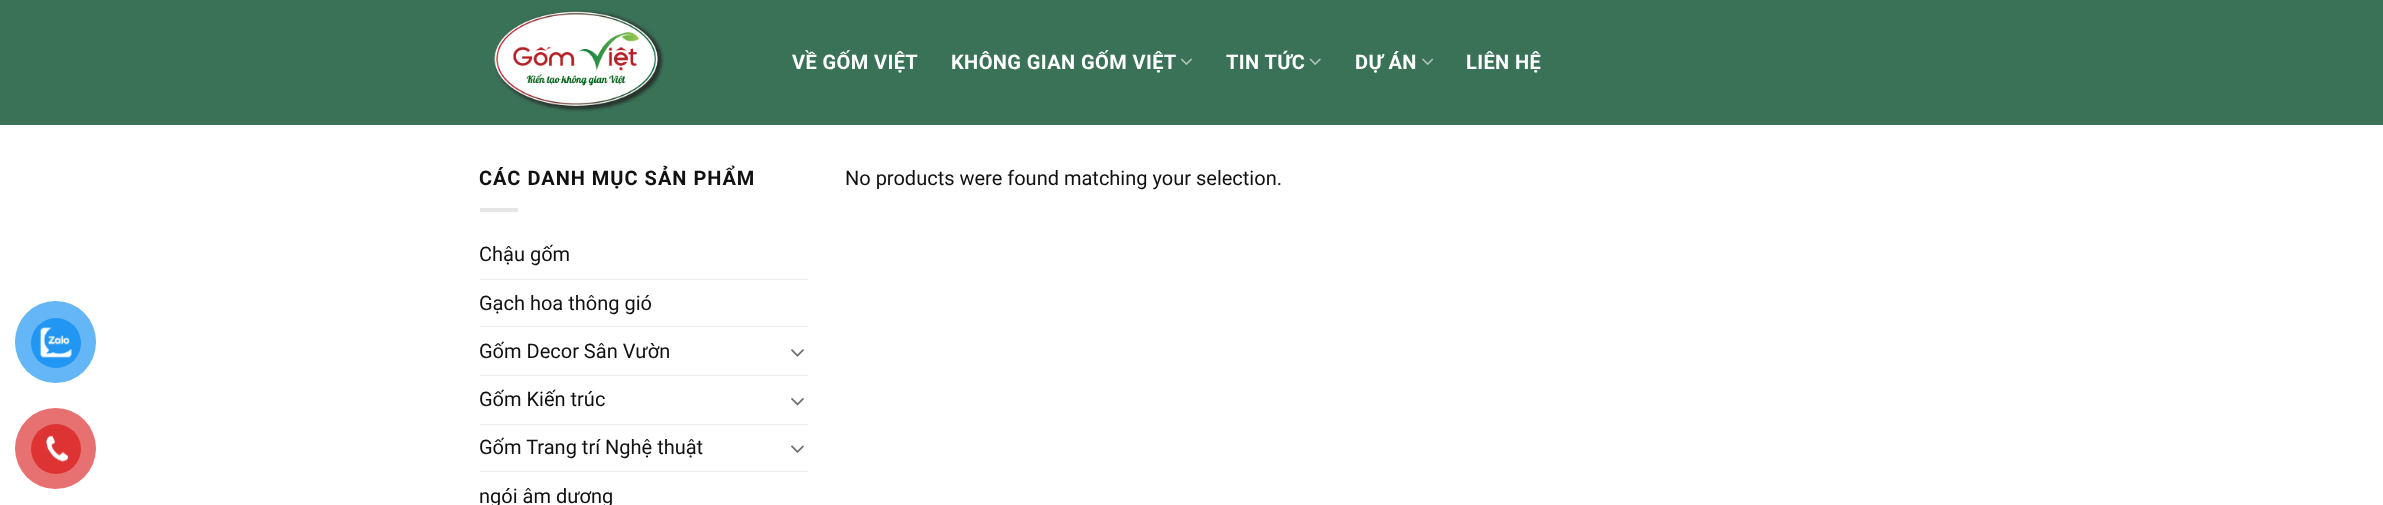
<?xml version="1.0" encoding="UTF-8"?>
<svg xmlns="http://www.w3.org/2000/svg" xmlns:xlink="http://www.w3.org/1999/xlink" width="2383" height="505">
  <rect width="100%" height="100%" fill="#ffffff" />
  <rect x="15" y="301" width="81" height="82" rx="40.5" fill="#64b6f7" />
  <circle cx="56" cy="343" r="25" fill="#2196f3" />
  <image x="39" y="327" width="33" height="31" xlink:href="image1.png" />
  <circle cx="55.5" cy="448.5" r="40.5" fill="#e77070" />
  <circle cx="56" cy="449" r="25" fill="#dd3333" />
  <image x="46" y="435" width="22" height="27" xlink:href="image2.png" />
  <rect width="2383" height="125" fill="#3a7257" />
  <image x="494" y="10" width="170" height="102" xlink:href="image3.png" />
  <image x="1180" y="58" width="12" height="7" xlink:href="image4.png" />
  <image x="1309" y="58" width="12" height="7" xlink:href="image5.png" />
  <image x="1422" y="58" width="12" height="7" xlink:href="image6.png" />
  <rect x="480" y="208" width="38" height="4" fill="#e6e6e6" />
  <rect x="480" y="279" width="328" height="1" fill="#ececec" />
  <rect x="480" y="326" width="328" height="1" fill="#ececec" />
  <image x="791" y="349" width="13" height="8" xlink:href="image7.png" />
  <rect x="480" y="375" width="328" height="1" fill="#ececec" />
  <image x="791" y="398" width="13" height="8" xlink:href="image8.png" />
  <rect x="480" y="424" width="328" height="1" fill="#ececec" />
  <image x="791" y="445" width="13" height="8" xlink:href="image9.png" />
  <rect x="480" y="471" width="328" height="1" fill="#ececec" />
  <text x="792" y="69" style="font-family: Roboto; font-size: 20px; font-weight: bold; letter-spacing: 0.4px; fill: #ffffff">VỀ GỐM VIỆT</text>
  <text x="951" y="69" style="font-family: Roboto; font-size: 20px; font-weight: bold; letter-spacing: 0.4px; fill: #ffffff">KHÔNG GIAN GỐM VIỆT</text>
  <text x="1226" y="69" style="font-family: Roboto; font-size: 20px; font-weight: bold; letter-spacing: 0.4px; fill: #ffffff">TIN TỨC</text>
  <text x="1355" y="69" style="font-family: Roboto; font-size: 20px; font-weight: bold; letter-spacing: 0.4px; fill: #ffffff">DỰ ÁN</text>
  <text x="1466" y="69" style="font-family: Roboto; font-size: 20px; font-weight: bold; letter-spacing: 0.4px; fill: #ffffff">LIÊN HỆ</text>
  <text x="479" y="185" style="font-family: Roboto; font-size: 20px; font-weight: bold; letter-spacing: 1px; fill: #111111">CÁC DANH MỤC SẢN PHẨM</text>
  <text x="479" y="261" style="font-family: Roboto; font-size: 20px; fill: #111111">Chậu gốm</text>
  <text x="479" y="310" style="font-family: Roboto; font-size: 20px; fill: #111111">Gạch hoa thông gió</text>
  <text x="479" y="358" style="font-family: Roboto; font-size: 20px; fill: #111111">Gốm Decor Sân Vườn</text>
  <text x="479" y="406" style="font-family: Roboto; font-size: 20px; fill: #111111">Gốm Kiến trúc</text>
  <text x="479" y="454" style="font-family: Roboto; font-size: 20px; fill: #111111">Gốm Trang trí Nghệ thuật</text>
  <text x="479" y="503" style="font-family: Roboto; font-size: 20px; fill: #111111">ngói âm dương</text>
  <text x="845" y="185" style="font-family: Roboto; font-size: 20px; fill: #111111">No products were found matching your selection.</text>
</svg>
